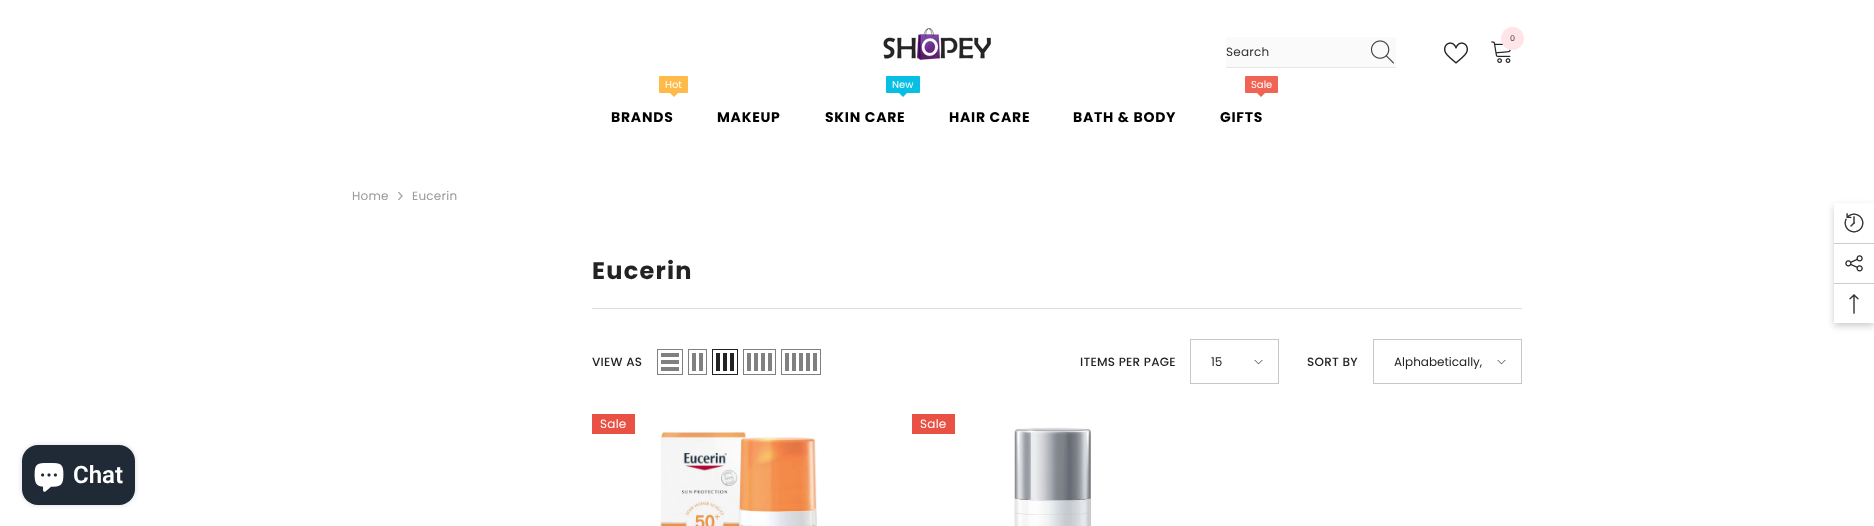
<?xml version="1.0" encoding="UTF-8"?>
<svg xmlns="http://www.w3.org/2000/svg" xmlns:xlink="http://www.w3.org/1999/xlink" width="1874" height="526">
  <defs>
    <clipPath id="clip1"><path d="M 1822 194 h 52 v 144 h -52 z m 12 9 h 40 v 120 h -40 z" clip-rule="evenodd" /></clipPath>
  </defs>
  <rect width="100%" height="100%" fill="#ffffff" />
  <image x="883" y="28" width="108" height="32" xlink:href="image1.png" />
  <image x="1491" y="41" width="20" height="22" xlink:href="image2.png" />
  <circle cx="1512.5" cy="38.5" r="11.5" fill="#ffe5e8" />
  <image x="1444" y="42" width="24" height="22" xlink:href="image3.png" />
  <rect x="1226" y="37" width="170" height="30" fill="#fafafa" />
  <rect x="1226" y="67" width="170" height="1" fill="#e7e7e7" />
  <image x="1371" y="40" width="23" height="24" xlink:href="image4.png" />
  <rect x="659" y="76" width="29" height="17" rx="1" fill="#ffbb49" />
  <path d="M 669 92 h 10 l -5 5 z" fill="#ffbb49" />
  <rect x="886" y="76" width="34" height="17" rx="1" fill="#06bfe2" />
  <path d="M 898 92 h 10 l -5 5 z" fill="#06bfe2" />
  <rect x="1245" y="76" width="33" height="17" rx="1" fill="#ef6454" />
  <path d="M 1256 92 h 10 l -5 5 z" fill="#ef6454" />
  <image x="398" y="191" width="5" height="10" xlink:href="image5.png" />
  <rect x="592" y="308" width="930" height="1" fill="#dedede" />
  <rect x="657.5" y="349.5" width="25" height="25" fill="none" stroke="#808080" />
  <rect x="661" y="367" width="18" height="4" fill="#808080" />
  <rect x="661" y="360" width="18" height="4" fill="#808080" />
  <rect x="661" y="353" width="18" height="4" fill="#808080" />
  <rect x="688.5" y="349.5" width="18" height="25" fill="none" stroke="#808080" />
  <rect x="699" y="353" width="4" height="18" fill="#808080" />
  <rect x="692" y="353" width="4" height="18" fill="#808080" />
  <rect x="712.5" y="349.5" width="25" height="25" fill="none" stroke="#232323" />
  <rect x="730" y="353" width="4" height="18" fill="#232323" />
  <rect x="723" y="353" width="4" height="18" fill="#232323" />
  <rect x="716" y="353" width="4" height="18" fill="#232323" />
  <rect x="743.5" y="349.5" width="32" height="25" fill="none" stroke="#808080" />
  <rect x="768" y="353" width="4" height="18" fill="#808080" />
  <rect x="761" y="353" width="4" height="18" fill="#808080" />
  <rect x="754" y="353" width="4" height="18" fill="#808080" />
  <rect x="747" y="353" width="4" height="18" fill="#808080" />
  <rect x="781.5" y="349.5" width="39" height="25" fill="none" stroke="#808080" />
  <rect x="813" y="353" width="4" height="18" fill="#808080" />
  <rect x="806" y="353" width="4" height="18" fill="#808080" />
  <rect x="799" y="353" width="4" height="18" fill="#808080" />
  <rect x="792" y="353" width="4" height="18" fill="#808080" />
  <rect x="785" y="353" width="4" height="18" fill="#808080" />
  <rect x="1190.5" y="339.5" width="88" height="44" fill="none" stroke="#c7c7c7" />
  <image x="1254" y="360" width="9" height="5" xlink:href="image6.png" />
  <rect x="1373.5" y="339.5" width="148" height="44" fill="none" stroke="#c7c7c7" />
  <image x="1497" y="360" width="9" height="5" xlink:href="image6.png" />
  <rect x="592" y="414" width="43" height="20" fill="#e95144" />
  <image x="660" y="431" width="157" height="95" xlink:href="image7.png" />
  <rect x="912" y="414" width="43" height="20" fill="#e95144" />
  <image x="1014" y="427" width="77" height="99" xlink:href="image8.png" />
  <g clip-path="url(#clip1)">
    <rect x="1834" y="206" width="40" height="120" fill="#000000" fill-opacity="0.2" filter="blur(3.5px)" />
  </g>
  <image x="1844" y="213" width="20" height="20" xlink:href="image9.png" />
  <rect x="1834" y="243" width="40" height="1" fill="#cccccc" />
  <image x="1845" y="255" width="18" height="17" xlink:href="image10.png" />
  <rect x="1834" y="283" width="40" height="1" fill="#cccccc" />
  <image x="1849" y="294" width="10" height="20" xlink:href="image11.png" />
  <rect x="22" y="445" width="113" height="60" rx="16" fill="#000000" fill-opacity="0.15" filter="blur(2.5px)" />
  <rect x="22" y="445" width="113" height="60" rx="16" fill="#202a36" />
  <image x="34" y="463" width="30" height="29" xlink:href="image12.png" />
  <text x="1510" y="41" style="font-family: Poppins; font-size: 8px; fill: #323232">0</text>
  <text x="1226" y="56" style="font-family: Poppins; font-size: 12px; letter-spacing: 0.25px; fill: #323232">Search</text>
  <text x="665" y="88" style="font-family: Poppins; font-size: 10px; fill: #ffffff">Hot</text>
  <text x="611" y="122" style="font-family: Poppins; font-size: 14px; font-weight: bold; letter-spacing: 0.75px; fill: #000000">BRANDS</text>
  <text x="717" y="122" style="font-family: Poppins; font-size: 14px; font-weight: bold; letter-spacing: 0.75px; fill: #000000">MAKEUP</text>
  <text x="892" y="88" style="font-family: Poppins; font-size: 10px; fill: #ffffff">New</text>
  <text x="825" y="122" style="font-family: Poppins; font-size: 14px; font-weight: bold; letter-spacing: 0.75px; fill: #000000">SKIN CARE</text>
  <text x="949" y="122" style="font-family: Poppins; font-size: 14px; font-weight: bold; letter-spacing: 0.75px; fill: #000000">HAIR CARE</text>
  <text x="1073" y="122" style="font-family: Poppins; font-size: 14px; font-weight: bold; letter-spacing: 0.75px; fill: #000000">BATH &amp; BODY</text>
  <text x="1251" y="88" style="font-family: Poppins; font-size: 10px; fill: #ffffff">Sale</text>
  <text x="1220" y="122" style="font-family: Poppins; font-size: 14px; font-weight: bold; letter-spacing: 0.75px; fill: #000000">GIFTS</text>
  <text x="352" y="200" style="font-family: Poppins; font-size: 12px; letter-spacing: 0.25px; fill: #999999">Home</text>
  <text x="412" y="200" style="font-family: Poppins; font-size: 12px; letter-spacing: 0.25px; fill: #999999">Eucerin</text>
  <text x="592" y="279" style="font-family: Poppins; font-size: 24px; font-weight: bold; letter-spacing: 1.25px; fill: #232323">Eucerin</text>
  <text x="592" y="366" style="font-family: Poppins; font-size: 12px; font-weight: 500; letter-spacing: 0.25px; fill: #232323">VIEW AS</text>
  <text x="1080" y="366" style="font-family: Poppins; font-size: 12px; font-weight: 500; letter-spacing: 0.25px; fill: #232323">ITEMS PER PAGE</text>
  <text x="1211" y="366" style="font-family: Poppins; font-size: 12px; fill: #232323">15</text>
  <text x="1307" y="366" style="font-family: Poppins; font-size: 12px; font-weight: 500; letter-spacing: 0.25px; fill: #232323">SORT BY</text>
  <text x="1394" y="366" style="font-family: Poppins; font-size: 12px; fill: #232323">Alphabetically,</text>
  <text x="600" y="428" style="font-family: Poppins; font-size: 12px; letter-spacing: 0.25px; fill: #ffffff">Sale</text>
  <text x="920" y="428" style="font-family: Poppins; font-size: 12px; letter-spacing: 0.25px; fill: #ffffff">Sale</text>
  <text x="73" y="483" style="font-family: Roboto; font-size: 24px; font-weight: 600; fill: #ffffff">Chat</text>
</svg>
